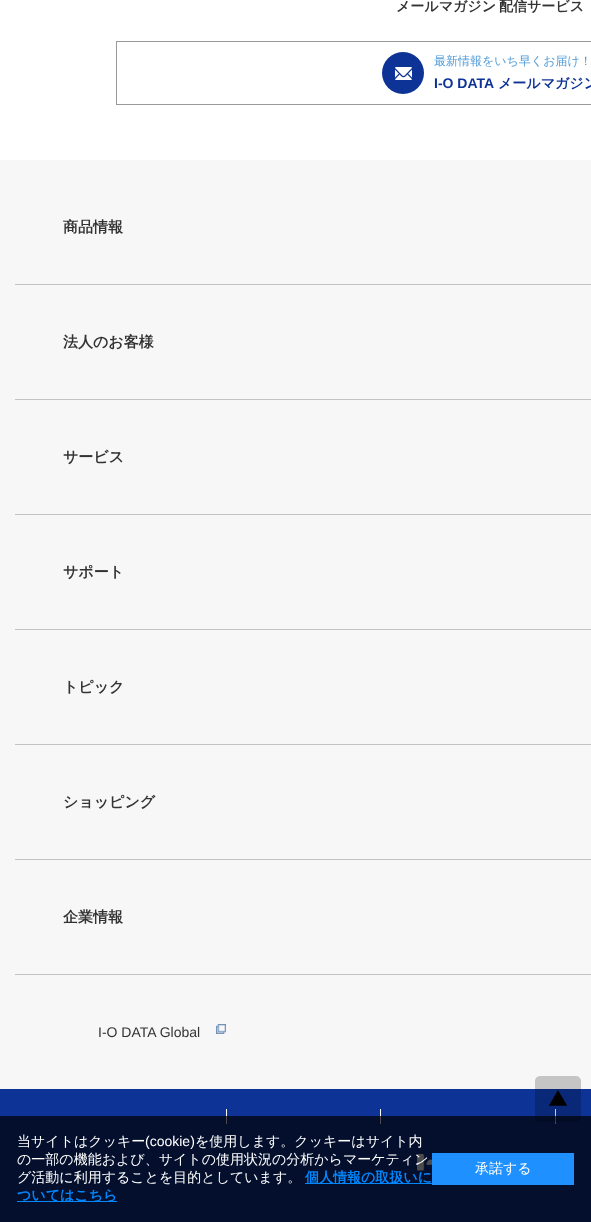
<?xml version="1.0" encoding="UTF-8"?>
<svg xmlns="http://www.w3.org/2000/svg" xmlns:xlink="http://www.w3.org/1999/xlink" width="591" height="1222">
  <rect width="100%" height="100%" fill="#ffffff" />
  <rect x="116.5" y="41.5" width="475" height="63" fill="none" stroke="#999999" />
  <image x="382" y="52" width="42" height="42" xlink:href="image1.png" />
  <rect y="160" width="591" height="929" fill="#f7f7f7" />
  <rect x="15" y="284" width="576" height="1" fill="#c3c3c3" />
  <rect x="15" y="399" width="576" height="1" fill="#c3c3c3" />
  <rect x="15" y="514" width="576" height="1" fill="#c3c3c3" />
  <rect x="15" y="629" width="576" height="1" fill="#c3c3c3" />
  <rect x="15" y="744" width="576" height="1" fill="#c3c3c3" />
  <rect x="15" y="859" width="576" height="1" fill="#c3c3c3" />
  <rect x="15" y="974" width="576" height="1" fill="#c3c3c3" />
  <image x="216" y="1024" width="10" height="10" xlink:href="image2.png" />
  <rect y="1089" width="591" height="133" fill="#0d3396" />
  <rect x="226" y="1109" width="1" height="15" fill="#ffffff" />
  <rect x="380" y="1109" width="1" height="15" fill="#ffffff" />
  <rect x="555" y="1109" width="1" height="15" fill="#ffffff" />
  <image x="417" y="1154" width="15" height="17" xlink:href="image3.png" />
  <rect y="1116" width="591" height="106" fill="#000000" fill-opacity="0.7" />
  <rect x="305" y="1183" width="127" height="1" fill="#0088ff" />
  <rect x="17" y="1201" width="100" height="1" fill="#0088ff" />
  <rect x="432" y="1153" width="142" height="32" fill="#1e90ff" />
  <image x="535" y="1076" width="46" height="46" xlink:href="image4.png" />
  <text x="396" y="11" style="font-family: WenQuanYi Zen Hei; font-size: 14px; font-weight: bold; fill: #333333">メールマガジン</text>
  <text x="499" y="11" style="font-family: WenQuanYi Zen Hei; font-size: 14px; font-weight: bold; fill: #333333">配信サービス</text>
  <text x="434" y="65" style="font-family: WenQuanYi Zen Hei; font-size: 12px; font-weight: 500; fill: #4f9bd8">最新情報をいち早くお届け！</text>
  <text x="434" y="88" style="font-family: Liberation Sans; font-size: 14px; font-weight: bold; fill: #0d3396">I-O DATA</text>
  <text x="498" y="88" style="font-family: WenQuanYi Zen Hei; font-size: 14px; font-weight: bold; fill: #0d3396">メールマガジン</text>
  <text x="63" y="232" style="font-family: WenQuanYi Zen Hei; font-size: 15px; font-weight: bold; fill: #333333">商品情報</text>
  <text x="63" y="347" style="font-family: WenQuanYi Zen Hei; font-size: 15px; font-weight: bold; fill: #333333">法人のお客様</text>
  <text x="63" y="462" style="font-family: WenQuanYi Zen Hei; font-size: 15px; font-weight: bold; fill: #333333">サービス</text>
  <text x="63" y="577" style="font-family: WenQuanYi Zen Hei; font-size: 15px; font-weight: bold; fill: #333333">サポート</text>
  <text x="63" y="692" style="font-family: WenQuanYi Zen Hei; font-size: 15px; font-weight: bold; fill: #333333">トピック</text>
  <text x="63" y="807" style="font-family: WenQuanYi Zen Hei; font-size: 15px; font-weight: bold; fill: #333333">ショッピング</text>
  <text x="63" y="922" style="font-family: WenQuanYi Zen Hei; font-size: 15px; font-weight: bold; fill: #333333">企業情報</text>
  <text x="98" y="1037" style="font-family: Liberation Sans; font-size: 14px; fill: #333333">I-O DATA Global</text>
  <text x="17" y="1146" style="font-family: WenQuanYi Zen Hei; font-size: 14px; font-weight: 500; fill: #ffffff">当サイトはクッキー</text>
  <text x="145" y="1146" style="font-family: Liberation Sans; font-size: 14px; fill: #ffffff">(cookie)</text>
  <text x="195" y="1146" style="font-family: WenQuanYi Zen Hei; font-size: 14px; font-weight: 500; fill: #ffffff">を使用します。クッキーはサイト内</text>
  <text x="17" y="1164" style="font-family: WenQuanYi Zen Hei; font-size: 14px; font-weight: 500; fill: #ffffff">の一部の機能および、サイトの使用状況の分析からマーケティン</text>
  <text x="17" y="1182" style="font-family: WenQuanYi Zen Hei; font-size: 14px; font-weight: 500; fill: #ffffff">グ活動に利用することを目的としています。</text>
  <text x="305" y="1182" style="font-family: WenQuanYi Zen Hei; font-size: 14px; font-weight: bold; fill: #0088ff">個人情報の取扱いに</text>
  <text x="17" y="1200" style="font-family: WenQuanYi Zen Hei; font-size: 14px; font-weight: bold; fill: #0088ff">ついてはこちら</text>
  <text x="475" y="1173" style="font-family: WenQuanYi Zen Hei; font-size: 14px; font-weight: 500; fill: #ffffff">承諾する</text>
</svg>
